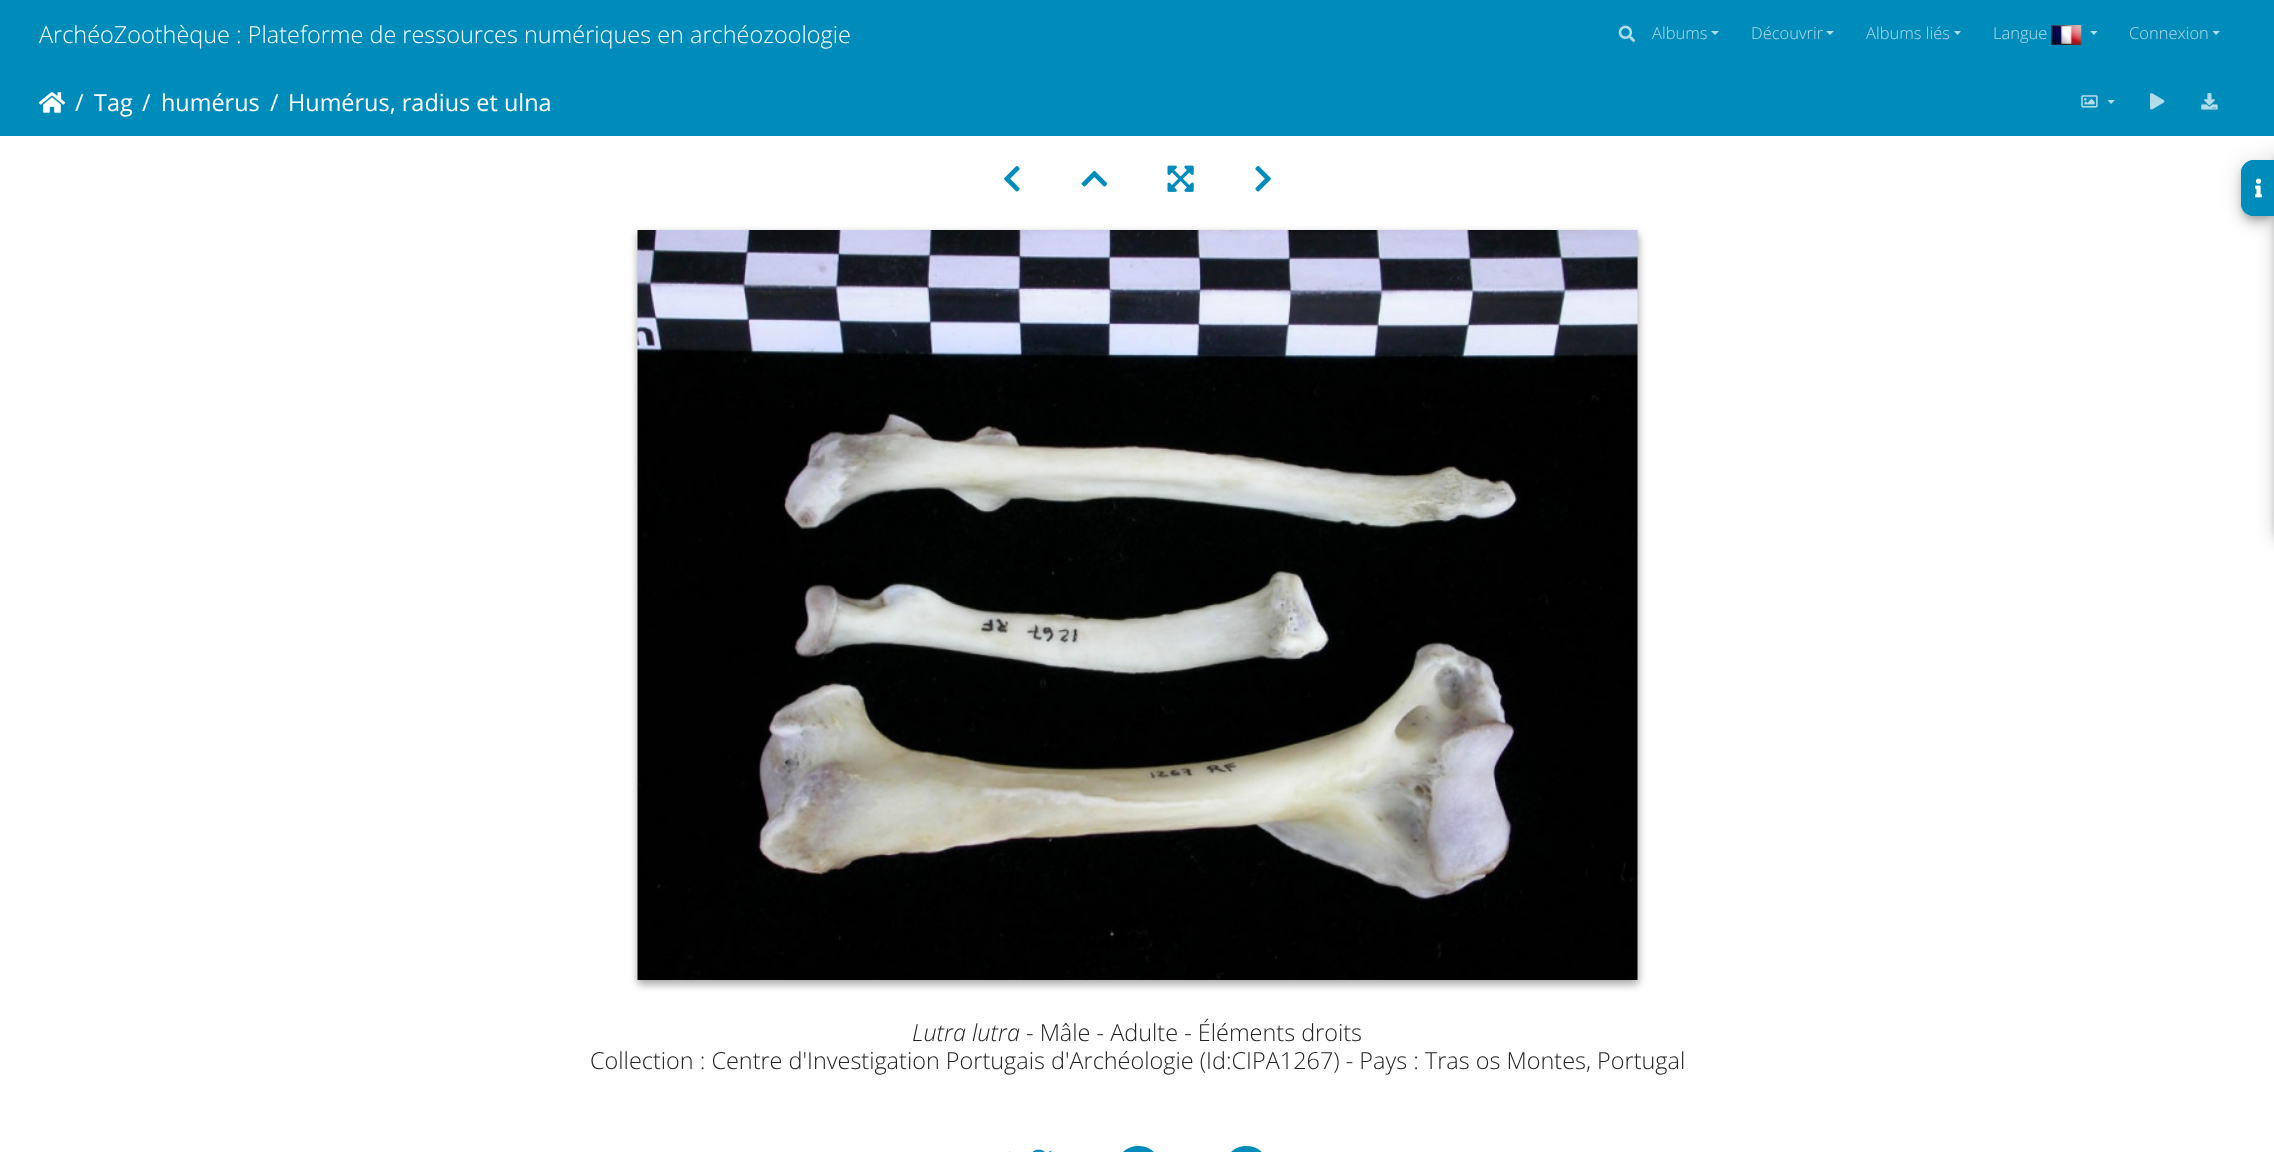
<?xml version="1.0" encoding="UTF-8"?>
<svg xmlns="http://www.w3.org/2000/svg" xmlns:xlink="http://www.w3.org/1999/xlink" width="2274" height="1152">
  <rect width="100%" height="100%" fill="#ffffff" />
  <rect x="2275" y="149" width="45" height="390" rx="13" fill="#000000" fill-opacity="0.12" filter="blur(11px)" />
  <rect x="2241" y="161" width="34" height="57" rx="13" fill="#000000" fill-opacity="0.12" filter="blur(11px)" />
  <rect width="2274" height="136" fill="#008cba" />
  <image x="1618" y="25" width="18" height="17" xlink:href="image1.png" />
  <path d="M 1711 31 h 8 l -4 4 z" fill="#b3ddea" />
  <path d="M 1826 31 h 8 l -4 4 z" fill="#b3ddea" />
  <path d="M 1954 31 h 7 l -3.5 4 z" fill="#b3ddea" />
  <image x="2051" y="25" width="31" height="20" xlink:href="image2.png" />
  <path d="M 2090 31 h 7.5 l -3.5 4 z" fill="#b3ddea" />
  <path d="M 2212.5 31 h 7.5 l -4 4 z" fill="#b3ddea" />
  <image x="39" y="92" width="26" height="21" xlink:href="image3.png" />
  <image x="2081" y="95" width="17" height="13" xlink:href="image4.png" />
  <path d="M 2107.5 100 h 7.5 l -4 4 z" fill="#b3ddea" />
  <image x="2150" y="93" width="15" height="17" xlink:href="image5.png" />
  <image x="2201" y="93" width="17" height="17" xlink:href="image6.png" />
  <image x="1004" y="166" width="16" height="26" xlink:href="image7.png" />
  <image x="1081" y="171" width="27" height="16" xlink:href="image8.png" />
  <image x="1167" y="165" width="27" height="27" xlink:href="image9.png" />
  <image x="1255" y="166" width="16" height="26" xlink:href="image10.png" />
  <rect x="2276" y="153" width="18" height="387" rx="11" fill="#000000" fill-opacity="0.2" filter="blur(3px)" />
  <rect x="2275" y="155" width="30" height="390" rx="13" fill="#000000" fill-opacity="0.14" filter="blur(6px)" />
  <rect x="2243" y="165" width="31" height="54" rx="11" fill="#000000" fill-opacity="0.2" filter="blur(3px)" />
  <rect x="2241" y="168" width="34" height="56" rx="13" fill="#000000" fill-opacity="0.14" filter="blur(6px)" />
  <path d="M 2254 160 h 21 v 56 h -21 c -7 0 -13 -6 -13 -13 v -30 c 0 -7 6 -13 13 -13 z" fill="#008cba" />
  <path d="M 2254 160 h 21 v 56 h -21 c -7 0 -13 -5 -13 -12 v -32 c 0 -6 6 -12 13 -12 z m 0 1 h 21 v 54 h -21 c -6 0 -12 -5 -12 -11 v -32 c 0 -6 6 -11 12 -11 z" fill="#008cba" fill-rule="evenodd" />
  <image x="2255" y="178" width="8" height="20" xlink:href="image11.png" />
  <rect x="638" y="234" width="1000" height="750" fill="#000000" fill-opacity="0.23" filter="blur(4px)" />
  <rect x="638" y="234" width="1000" height="750" fill="#000000" fill-opacity="0.16" filter="blur(4px)" />
  <image x="637" y="230" width="1001" height="750" xlink:href="image12.png" />
  <image x="1009" y="1149" width="43" height="3" xlink:href="image13.png" />
  <image x="1123" y="1146" width="31" height="6" xlink:href="image14.png" />
  <image x="1231" y="1146" width="31" height="6" xlink:href="image15.png" />
  <text x="39" y="43" style="font-family: Open Sans; font-size: 23.45px; font-weight: 300; fill: #ffffff">ArchéoZoothèque : Plateforme de ressources numériques en archéozoologie</text>
  <text x="1652" y="39" style="font-family: Open Sans; font-size: 16.5px; font-weight: 300; fill: #b3ddea">Albums</text>
  <text x="1751" y="39" style="font-family: Open Sans; font-size: 16.5px; font-weight: 300; fill: #b3ddea">Découvrir</text>
  <text x="1866" y="39" style="font-family: Open Sans; font-size: 16.5px; font-weight: 300; fill: #b3ddea">Albums liés</text>
  <text x="1993" y="39" style="font-family: Open Sans; font-size: 16.5px; font-weight: 300; fill: #b3ddea">Langue</text>
  <text x="2129" y="39" style="font-family: Open Sans; font-size: 16.5px; font-weight: 300; fill: #b3ddea">Connexion</text>
  <text x="75" y="111" style="font-family: Open Sans; font-size: 23.45px; fill: #ffffff">/</text>
  <text x="94" y="111" style="font-family: Open Sans; font-size: 23.45px; fill: #ffffff">Tag</text>
  <text x="142" y="111" style="font-family: Open Sans; font-size: 23.45px; fill: #ffffff">/</text>
  <text x="161" y="111" style="font-family: Open Sans; font-size: 23.45px; fill: #ffffff">humérus</text>
  <text x="270" y="111" style="font-family: Open Sans; font-size: 23.45px; fill: #ffffff">/</text>
  <text x="288" y="111" style="font-family: Open Sans; font-size: 23.45px; fill: #ffffff">Humérus, radius et ulna</text>
  <text x="912" y="1041" style="font-family: Open Sans; font-size: 23.45px; font-weight: 300; font-style: italic; fill: #222222">Lutra lutra</text>
  <text x="1026" y="1041" style="font-family: Open Sans; font-size: 23.45px; font-weight: 300; fill: #222222">- Mâle - Adulte - Éléments droits</text>
  <text x="590" y="1069" style="font-family: Open Sans; font-size: 23.45px; font-weight: 300; fill: #222222">Collection : Centre d'Investigation Portugais d'Archéologie (Id:CIPA1267) - Pays : Tras os Montes, Portugal</text>
</svg>
